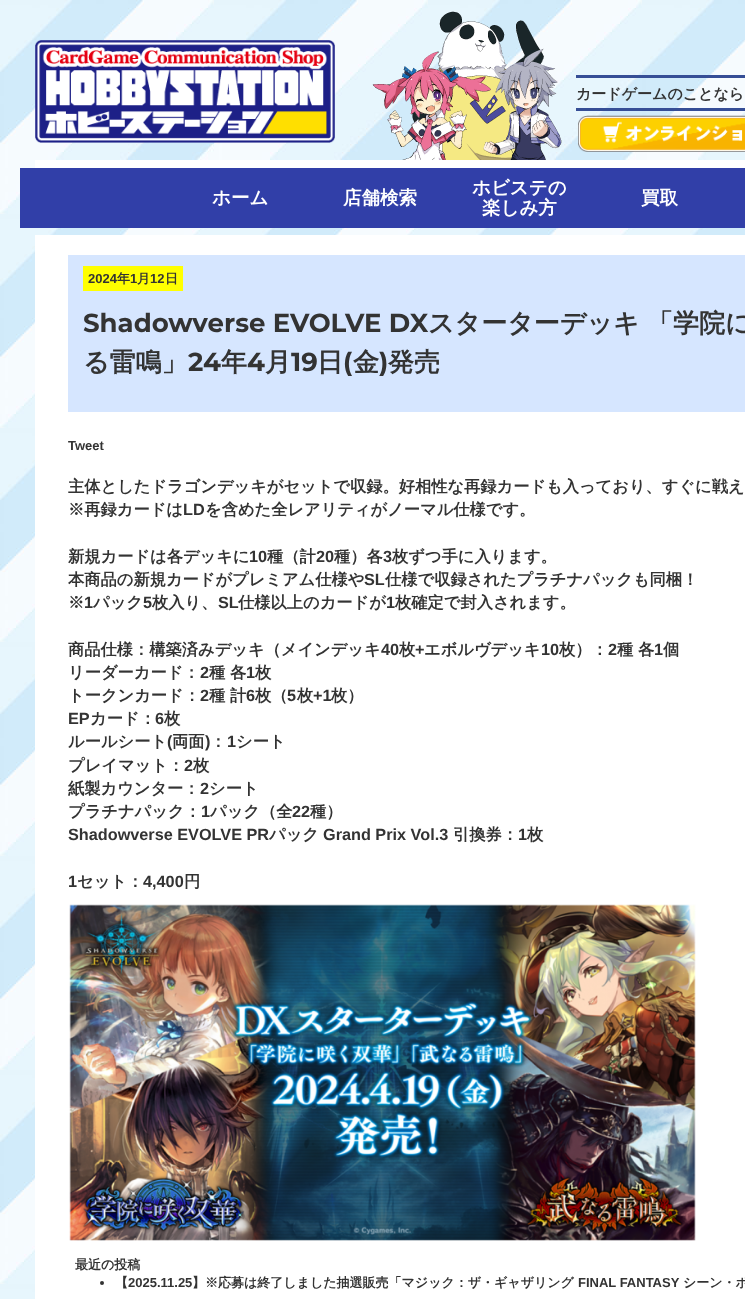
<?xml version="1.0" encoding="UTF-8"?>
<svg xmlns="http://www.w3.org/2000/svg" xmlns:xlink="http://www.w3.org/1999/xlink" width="745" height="1299">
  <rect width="100%" height="100%" fill="#ffffff" />
  <image x="0" y="0" width="745" height="1299" xlink:href="image1.png" />
  <image x="35" y="40" width="300" height="103" xlink:href="image2.png" />
  <image x="372" y="11" width="190" height="149" xlink:href="image3.png" />
  <rect x="576" y="75" width="169" height="3" fill="#364e96" />
  <rect x="576" y="108" width="169" height="3" fill="#364e96" />
  <image x="578" y="115" width="167" height="37" xlink:href="image4.png" />
  <rect x="35" y="160" width="710" height="8" fill="#ffffff" />
  <rect x="20" y="168" width="725" height="60" fill="#313fa8" />
  <rect x="35" y="235" width="710" height="1064" fill="#ffffff" />
  <rect x="68" y="255" width="677" height="157" fill="#d6e6ff" />
  <rect x="83" y="266" width="100" height="25" fill="#ffff00" />
  <image x="69" y="904" width="627" height="337" xlink:href="image5.png" />
  <circle cx="102" cy="1283" r="2" fill="#333333" />
  <text x="576" y="99" style="font-family: WenQuanYi Zen Hei; font-size: 15px; font-weight: bold; fill: #333333">カードゲームのことなら</text>
  <text x="212" y="204" style="font-family: WenQuanYi Zen Hei; font-size: 18.5px; font-weight: bold; fill: #ffffff">ホーム</text>
  <text x="343" y="204" style="font-family: WenQuanYi Zen Hei; font-size: 18.5px; font-weight: bold; fill: #ffffff">店舗検索</text>
  <text x="472" y="194" style="font-family: WenQuanYi Zen Hei; font-size: 18.5px; font-weight: bold; fill: #ffffff">ホビステの</text>
  <text x="482" y="214" style="font-family: WenQuanYi Zen Hei; font-size: 18.5px; font-weight: bold; fill: #ffffff">楽しみ方</text>
  <text x="641" y="204" style="font-family: WenQuanYi Zen Hei; font-size: 18.5px; font-weight: bold; fill: #ffffff">買取</text>
  <text x="88" y="283" style="font-family: Liberation Sans; font-size: 13px; font-weight: bold; fill: #333333">2024</text>
  <text x="117" y="283" style="font-family: WenQuanYi Zen Hei; font-size: 13px; font-weight: bold; fill: #333333">年</text>
  <text x="130" y="283" style="font-family: Liberation Sans; font-size: 13px; font-weight: bold; fill: #333333">1</text>
  <text x="137" y="283" style="font-family: WenQuanYi Zen Hei; font-size: 13px; font-weight: bold; fill: #333333">月</text>
  <text x="150" y="283" style="font-family: Liberation Sans; font-size: 13px; font-weight: bold; fill: #333333">12</text>
  <text x="165" y="283" style="font-family: WenQuanYi Zen Hei; font-size: 13px; font-weight: bold; fill: #333333">日</text>
  <text x="83" y="332" style="font-family: Montserrat; font-size: 26px; font-weight: bold; fill: #333333">Shadowverse EVOLVE DX</text>
  <text x="428" y="332" style="font-family: WenQuanYi Zen Hei; font-size: 26px; font-weight: bold; fill: #333333">スターターデッキ</text>
  <text x="647" y="332" style="font-family: WenQuanYi Zen Hei; font-size: 26px; font-weight: bold; fill: #333333">「学院に</text>
  <text x="83" y="371" style="font-family: WenQuanYi Zen Hei; font-size: 26px; font-weight: bold; fill: #333333">る雷鳴」</text>
  <text x="188" y="371" style="font-family: Montserrat; font-size: 26px; font-weight: bold; fill: #333333">24</text>
  <text x="221" y="371" style="font-family: WenQuanYi Zen Hei; font-size: 26px; font-weight: bold; fill: #333333">年</text>
  <text x="247" y="371" style="font-family: Montserrat; font-size: 26px; font-weight: bold; fill: #333333">4</text>
  <text x="265" y="371" style="font-family: WenQuanYi Zen Hei; font-size: 26px; font-weight: bold; fill: #333333">月</text>
  <text x="291" y="371" style="font-family: Montserrat; font-size: 26px; font-weight: bold; fill: #333333">19</text>
  <text x="317" y="371" style="font-family: WenQuanYi Zen Hei; font-size: 26px; font-weight: bold; fill: #333333">日</text>
  <text x="343" y="371" style="font-family: Montserrat; font-size: 26px; font-weight: bold; fill: #333333">(</text>
  <text x="353" y="371" style="font-family: WenQuanYi Zen Hei; font-size: 26px; font-weight: bold; fill: #333333">金</text>
  <text x="379" y="371" style="font-family: Montserrat; font-size: 26px; font-weight: bold; fill: #333333">)</text>
  <text x="388" y="371" style="font-family: WenQuanYi Zen Hei; font-size: 26px; font-weight: bold; fill: #333333">発売</text>
  <text x="68" y="450" style="font-family: Liberation Sans; font-size: 13px; font-weight: bold; fill: #333333">Tweet</text>
  <text x="68" y="492" style="font-family: WenQuanYi Zen Hei; font-size: 16.25px; font-weight: bold; fill: #333333">主体としたドラゴンデッキがセットで収録。好相性な再録カードも入っており、すぐに戦え</text>
  <text x="68" y="515" style="font-family: WenQuanYi Zen Hei; font-size: 16.25px; font-weight: bold; fill: #333333">※再録カードは</text>
  <text x="183" y="515" style="font-family: Liberation Sans; font-size: 16.25px; font-weight: bold; fill: #333333">LD</text>
  <text x="205" y="515" style="font-family: WenQuanYi Zen Hei; font-size: 16.25px; font-weight: bold; fill: #333333">を含めた全レアリティがノーマル仕様です。</text>
  <text x="68" y="562" style="font-family: WenQuanYi Zen Hei; font-size: 16.25px; font-weight: bold; fill: #333333">新規カードは各デッキに</text>
  <text x="249" y="562" style="font-family: Liberation Sans; font-size: 16.25px; font-weight: bold; fill: #333333">10</text>
  <text x="267" y="562" style="font-family: WenQuanYi Zen Hei; font-size: 16.25px; font-weight: bold; fill: #333333">種（計</text>
  <text x="316" y="562" style="font-family: Liberation Sans; font-size: 16.25px; font-weight: bold; fill: #333333">20</text>
  <text x="334" y="562" style="font-family: WenQuanYi Zen Hei; font-size: 16.25px; font-weight: bold; fill: #333333">種）各</text>
  <text x="383" y="562" style="font-family: Liberation Sans; font-size: 16.25px; font-weight: bold; fill: #333333">3</text>
  <text x="392" y="562" style="font-family: WenQuanYi Zen Hei; font-size: 16.25px; font-weight: bold; fill: #333333">枚ずつ手に入ります。</text>
  <text x="68" y="585" style="font-family: WenQuanYi Zen Hei; font-size: 16.25px; font-weight: bold; fill: #333333">本商品の新規カードがプレミアム仕様や</text>
  <text x="364" y="585" style="font-family: Liberation Sans; font-size: 16.25px; font-weight: bold; fill: #333333">SL</text>
  <text x="385" y="585" style="font-family: WenQuanYi Zen Hei; font-size: 16.25px; font-weight: bold; fill: #333333">仕様で収録されたプラチナパックも同梱！</text>
  <text x="68" y="608" style="font-family: WenQuanYi Zen Hei; font-size: 16.25px; font-weight: bold; fill: #333333">※</text>
  <text x="84" y="608" style="font-family: Liberation Sans; font-size: 16.25px; font-weight: bold; fill: #333333">1</text>
  <text x="93" y="608" style="font-family: WenQuanYi Zen Hei; font-size: 16.25px; font-weight: bold; fill: #333333">パック</text>
  <text x="143" y="608" style="font-family: Liberation Sans; font-size: 16.25px; font-weight: bold; fill: #333333">5</text>
  <text x="152" y="608" style="font-family: WenQuanYi Zen Hei; font-size: 16.25px; font-weight: bold; fill: #333333">枚入り、</text>
  <text x="218" y="608" style="font-family: Liberation Sans; font-size: 16.25px; font-weight: bold; fill: #333333">SL</text>
  <text x="238" y="608" style="font-family: WenQuanYi Zen Hei; font-size: 16.25px; font-weight: bold; fill: #333333">仕様以上のカードが</text>
  <text x="386" y="608" style="font-family: Liberation Sans; font-size: 16.25px; font-weight: bold; fill: #333333">1</text>
  <text x="395" y="608" style="font-family: WenQuanYi Zen Hei; font-size: 16.25px; font-weight: bold; fill: #333333">枚確定で封入されます。</text>
  <text x="68" y="655" style="font-family: WenQuanYi Zen Hei; font-size: 16.25px; font-weight: bold; fill: #333333">商品仕様：構築済みデッキ（メインデッキ</text>
  <text x="381" y="655" style="font-family: Liberation Sans; font-size: 16.25px; font-weight: bold; fill: #333333">40</text>
  <text x="399" y="655" style="font-family: WenQuanYi Zen Hei; font-size: 16.25px; font-weight: bold; fill: #333333">枚</text>
  <text x="415" y="655" style="font-family: Liberation Sans; font-size: 16.25px; font-weight: bold; fill: #333333">+</text>
  <text x="424" y="655" style="font-family: WenQuanYi Zen Hei; font-size: 16.25px; font-weight: bold; fill: #333333">エボルヴデッキ</text>
  <text x="541" y="655" style="font-family: Liberation Sans; font-size: 16.25px; font-weight: bold; fill: #333333">10</text>
  <text x="559" y="655" style="font-family: WenQuanYi Zen Hei; font-size: 16.25px; font-weight: bold; fill: #333333">枚）：</text>
  <text x="608" y="655" style="font-family: Liberation Sans; font-size: 16.25px; font-weight: bold; fill: #333333">2</text>
  <text x="617" y="655" style="font-family: WenQuanYi Zen Hei; font-size: 16.25px; font-weight: bold; fill: #333333">種 各</text>
  <text x="654" y="655" style="font-family: Liberation Sans; font-size: 16.25px; font-weight: bold; fill: #333333">1</text>
  <text x="663" y="655" style="font-family: WenQuanYi Zen Hei; font-size: 16.25px; font-weight: bold; fill: #333333">個</text>
  <text x="68" y="678" style="font-family: WenQuanYi Zen Hei; font-size: 16.25px; font-weight: bold; fill: #333333">リーダーカード：</text>
  <text x="200" y="678" style="font-family: Liberation Sans; font-size: 16.25px; font-weight: bold; fill: #333333">2</text>
  <text x="209" y="678" style="font-family: WenQuanYi Zen Hei; font-size: 16.25px; font-weight: bold; fill: #333333">種 各</text>
  <text x="246" y="678" style="font-family: Liberation Sans; font-size: 16.25px; font-weight: bold; fill: #333333">1</text>
  <text x="255" y="678" style="font-family: WenQuanYi Zen Hei; font-size: 16.25px; font-weight: bold; fill: #333333">枚</text>
  <text x="68" y="701" style="font-family: WenQuanYi Zen Hei; font-size: 16.25px; font-weight: bold; fill: #333333">トークンカード：</text>
  <text x="200" y="701" style="font-family: Liberation Sans; font-size: 16.25px; font-weight: bold; fill: #333333">2</text>
  <text x="209" y="701" style="font-family: WenQuanYi Zen Hei; font-size: 16.25px; font-weight: bold; fill: #333333">種 計</text>
  <text x="246" y="701" style="font-family: Liberation Sans; font-size: 16.25px; font-weight: bold; fill: #333333">6</text>
  <text x="255" y="701" style="font-family: WenQuanYi Zen Hei; font-size: 16.25px; font-weight: bold; fill: #333333">枚（</text>
  <text x="287" y="701" style="font-family: Liberation Sans; font-size: 16.25px; font-weight: bold; fill: #333333">5</text>
  <text x="297" y="701" style="font-family: WenQuanYi Zen Hei; font-size: 16.25px; font-weight: bold; fill: #333333">枚</text>
  <text x="313" y="701" style="font-family: Liberation Sans; font-size: 16.25px; font-weight: bold; fill: #333333">+1</text>
  <text x="331" y="701" style="font-family: WenQuanYi Zen Hei; font-size: 16.25px; font-weight: bold; fill: #333333">枚）</text>
  <text x="68" y="724" style="font-family: Liberation Sans; font-size: 16.25px; font-weight: bold; fill: #333333">EP</text>
  <text x="90" y="724" style="font-family: WenQuanYi Zen Hei; font-size: 16.25px; font-weight: bold; fill: #333333">カード：</text>
  <text x="155" y="724" style="font-family: Liberation Sans; font-size: 16.25px; font-weight: bold; fill: #333333">6</text>
  <text x="164" y="724" style="font-family: WenQuanYi Zen Hei; font-size: 16.25px; font-weight: bold; fill: #333333">枚</text>
  <text x="68" y="747" style="font-family: WenQuanYi Zen Hei; font-size: 16.25px; font-weight: bold; fill: #333333">ルールシート</text>
  <text x="167" y="747" style="font-family: Liberation Sans; font-size: 16.25px; font-weight: bold; fill: #333333">(</text>
  <text x="172" y="747" style="font-family: WenQuanYi Zen Hei; font-size: 16.25px; font-weight: bold; fill: #333333">両面</text>
  <text x="205" y="747" style="font-family: Liberation Sans; font-size: 16.25px; font-weight: bold; fill: #333333">)</text>
  <text x="210" y="747" style="font-family: WenQuanYi Zen Hei; font-size: 16.25px; font-weight: bold; fill: #333333">：</text>
  <text x="227" y="747" style="font-family: Liberation Sans; font-size: 16.25px; font-weight: bold; fill: #333333">1</text>
  <text x="236" y="747" style="font-family: WenQuanYi Zen Hei; font-size: 16.25px; font-weight: bold; fill: #333333">シート</text>
  <text x="68" y="771" style="font-family: WenQuanYi Zen Hei; font-size: 16.25px; font-weight: bold; fill: #333333">プレイマット：</text>
  <text x="184" y="771" style="font-family: Liberation Sans; font-size: 16.25px; font-weight: bold; fill: #333333">2</text>
  <text x="193" y="771" style="font-family: WenQuanYi Zen Hei; font-size: 16.25px; font-weight: bold; fill: #333333">枚</text>
  <text x="68" y="794" style="font-family: WenQuanYi Zen Hei; font-size: 16.25px; font-weight: bold; fill: #333333">紙製カウンター：</text>
  <text x="200" y="794" style="font-family: Liberation Sans; font-size: 16.25px; font-weight: bold; fill: #333333">2</text>
  <text x="209" y="794" style="font-family: WenQuanYi Zen Hei; font-size: 16.25px; font-weight: bold; fill: #333333">シート</text>
  <text x="68" y="817" style="font-family: WenQuanYi Zen Hei; font-size: 16.25px; font-weight: bold; fill: #333333">プラチナパック：</text>
  <text x="201" y="817" style="font-family: Liberation Sans; font-size: 16.25px; font-weight: bold; fill: #333333">1</text>
  <text x="210" y="817" style="font-family: WenQuanYi Zen Hei; font-size: 16.25px; font-weight: bold; fill: #333333">パック（全</text>
  <text x="292" y="817" style="font-family: Liberation Sans; font-size: 16.25px; font-weight: bold; fill: #333333">22</text>
  <text x="310" y="817" style="font-family: WenQuanYi Zen Hei; font-size: 16.25px; font-weight: bold; fill: #333333">種）</text>
  <text x="68" y="840" style="font-family: Liberation Sans; font-size: 16.25px; font-weight: bold; fill: #333333">Shadowverse EVOLVE PR</text>
  <text x="269" y="840" style="font-family: WenQuanYi Zen Hei; font-size: 16.25px; font-weight: bold; fill: #333333">パック</text>
  <text x="323" y="840" style="font-family: Liberation Sans; font-size: 16.25px; font-weight: bold; fill: #333333">Grand Prix Vol.3</text>
  <text x="453" y="840" style="font-family: WenQuanYi Zen Hei; font-size: 16.25px; font-weight: bold; fill: #333333">引換券：</text>
  <text x="518" y="840" style="font-family: Liberation Sans; font-size: 16.25px; font-weight: bold; fill: #333333">1</text>
  <text x="527" y="840" style="font-family: WenQuanYi Zen Hei; font-size: 16.25px; font-weight: bold; fill: #333333">枚</text>
  <text x="68" y="887" style="font-family: Liberation Sans; font-size: 16.25px; font-weight: bold; fill: #333333">1</text>
  <text x="77" y="887" style="font-family: WenQuanYi Zen Hei; font-size: 16.25px; font-weight: bold; fill: #333333">セット：</text>
  <text x="143" y="887" style="font-family: Liberation Sans; font-size: 16.25px; font-weight: bold; fill: #333333">4,400</text>
  <text x="184" y="887" style="font-family: WenQuanYi Zen Hei; font-size: 16.25px; font-weight: bold; fill: #333333">円</text>
  <text x="75" y="1269" style="font-family: WenQuanYi Zen Hei; font-size: 13px; font-weight: bold; fill: #333333">最近の投稿</text>
  <text x="115" y="1287" style="font-family: WenQuanYi Zen Hei; font-size: 13px; font-weight: bold; fill: #333333">【</text>
  <text x="128" y="1287" style="font-family: Liberation Sans; font-size: 13px; font-weight: bold; fill: #333333">2025.11.25</text>
  <text x="192" y="1287" style="font-family: WenQuanYi Zen Hei; font-size: 13px; font-weight: bold; fill: #333333">】※応募は終了しました抽選販売「マジック：ザ・ギャザリング</text>
  <text x="578" y="1287" style="font-family: Liberation Sans; font-size: 13px; font-weight: bold; fill: #333333">FINAL FANTASY</text>
  <text x="683" y="1287" style="font-family: WenQuanYi Zen Hei; font-size: 13px; font-weight: bold; fill: #333333">シーン・ボ</text>
</svg>
